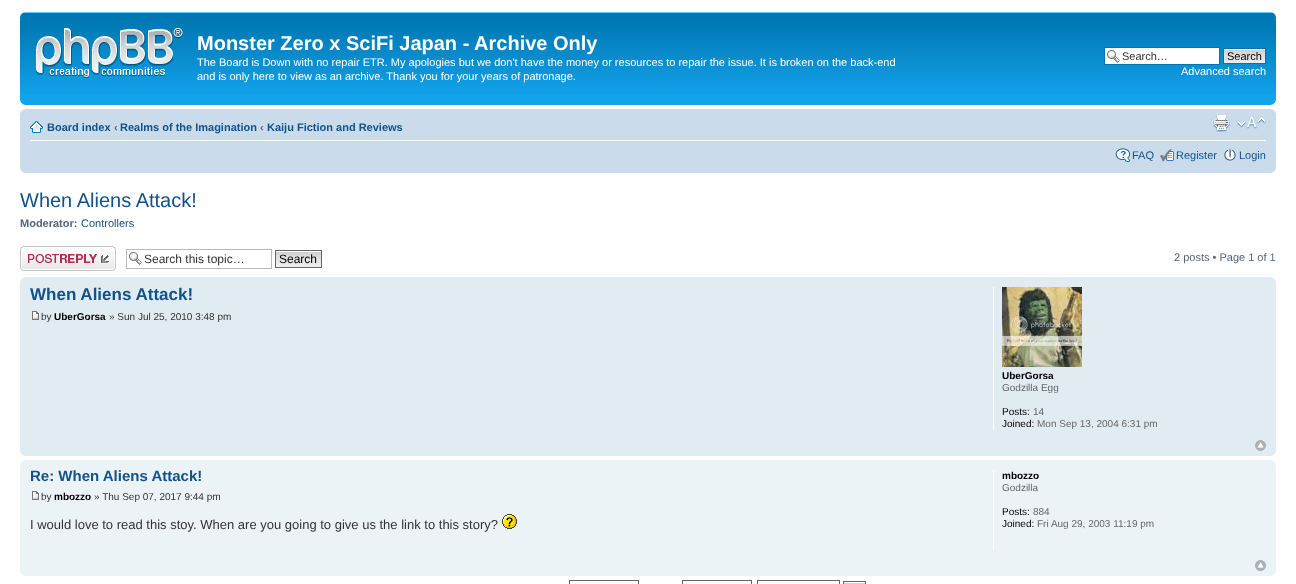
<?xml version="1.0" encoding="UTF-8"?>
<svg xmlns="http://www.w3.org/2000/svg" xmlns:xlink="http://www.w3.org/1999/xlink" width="1296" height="584">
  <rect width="100%" height="100%" fill="#ffffff" />
  <rect x="20" y="94" width="1256" height="11" fill="#12a3eb" />
  <image x="20" y="12" width="1256" height="82" xlink:href="image1.png" />
  <image x="20" y="12" width="5" height="5" xlink:href="image2.png" />
  <image x="1271" y="12" width="5" height="5" xlink:href="image3.png" />
  <image x="36" y="28" width="147" height="50" xlink:href="image4.png" />
  <rect x="1105" y="48" width="114" height="16" fill="#ffffff" />
  <image x="1107" y="50" width="13" height="13" xlink:href="image5.png" />
  <rect x="1104.5" y="47.5" width="115" height="17" fill="none" stroke="#0075b0" />
  <image x="1224" y="49" width="41" height="14" xlink:href="image6.png" />
  <rect x="1223.5" y="48.5" width="42" height="15" fill="none" stroke="#0075b0" />
  <image x="20" y="100" width="5" height="5" xlink:href="image7.png" />
  <image x="1271" y="100" width="5" height="5" xlink:href="image8.png" />
  <rect x="20" y="109" width="1256" height="64" fill="#cadceb" />
  <image x="20" y="109" width="5" height="5" xlink:href="image9.png" />
  <image x="1271" y="109" width="5" height="5" xlink:href="image10.png" />
  <rect x="30" y="140" width="1236" height="1" fill="#ffffff" />
  <image x="30" y="121" width="13" height="12" xlink:href="image11.png" />
  <image x="1213" y="115" width="17" height="17" xlink:href="image12.png" />
  <image x="1237" y="117" width="29" height="12" xlink:href="image13.png" />
  <image x="1115" y="148" width="16" height="14" xlink:href="image14.png" />
  <image x="1160" y="149" width="14" height="13" xlink:href="image15.png" />
  <image x="1224" y="149" width="12" height="12" xlink:href="image16.png" />
  <image x="20" y="168" width="5" height="5" xlink:href="image17.png" />
  <image x="1271" y="168" width="5" height="5" xlink:href="image18.png" />
  <image x="20" y="246" width="96" height="25" xlink:href="image19.png" />
  <image x="129" y="252" width="13" height="13" xlink:href="image5.png" />
  <rect x="126.5" y="249.5" width="145" height="19" fill="none" stroke="#b4bac0" />
  <image x="276" y="251" width="45" height="16" xlink:href="image20.png" />
  <rect x="275.5" y="250.5" width="46" height="17" fill="none" stroke="#666666" />
  <rect x="20" y="277" width="1256" height="179" fill="#e1ebf2" />
  <image x="20" y="277" width="5" height="5" xlink:href="image21.png" />
  <image x="1271" y="277" width="5" height="5" xlink:href="image22.png" />
  <image x="32" y="311" width="7" height="9" xlink:href="image23.png" />
  <rect x="993" y="287" width="1" height="143" fill="#ffffff" />
  <image x="1002" y="287" width="80" height="80" xlink:href="image24.png" />
  <image x="1255" y="440" width="11" height="11" xlink:href="image25.png" />
  <image x="20" y="451" width="5" height="5" xlink:href="image26.png" />
  <image x="1271" y="451" width="5" height="5" xlink:href="image27.png" />
  <rect x="20" y="460" width="1256" height="116" fill="#ecf3f7" />
  <image x="20" y="460" width="5" height="5" xlink:href="image28.png" />
  <image x="1271" y="460" width="5" height="5" xlink:href="image29.png" />
  <image x="32" y="491" width="7" height="9" xlink:href="image30.png" />
  <image x="502" y="514" width="15" height="15" xlink:href="image31.png" />
  <rect x="993" y="470" width="1" height="80" fill="#ffffff" />
  <image x="1255" y="560" width="11" height="11" xlink:href="image32.png" />
  <image x="20" y="571" width="5" height="5" xlink:href="image33.png" />
  <image x="1271" y="571" width="5" height="5" xlink:href="image34.png" />
  <rect x="569.5" y="580.5" width="69" height="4" fill="#fafafa" stroke="#666666" />
  <rect x="682.5" y="580.5" width="69" height="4" fill="#fafafa" stroke="#666666" />
  <rect x="757.5" y="580.5" width="82" height="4" fill="#fafafa" stroke="#666666" />
  <image x="844" y="582" width="21" height="2" xlink:href="image35.png" />
  <rect x="843.5" y="581.5" width="22" height="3" fill="none" stroke="#666666" />
  <text x="197" y="50" style="font-family: Liberation Sans; font-size: 20px; font-weight: bold; fill: #ffffff">Monster Zero x SciFi Japan - Archive Only</text>
  <text x="197" y="66" style="font-family: Liberation Sans; font-size: 11px; fill: #ffffff">The Board is Down with no repair ETR. My apologies but we don't have the money or resources to repair the issue. It is broken on the back-end</text>
  <text x="197" y="80" style="font-family: Liberation Sans; font-size: 11px; fill: #ffffff">and is only here to view as an archive. Thank you for your years of patronage.</text>
  <text x="1122" y="60" style="font-family: Liberation Sans; font-size: 11px; fill: #333333">Search…</text>
  <text x="1227" y="60" style="font-family: Liberation Sans; font-size: 11px; fill: #000000">Search</text>
  <text x="1181" y="75" style="font-family: Liberation Sans; font-size: 11px; fill: #ffffff">Advanced search</text>
  <text x="47" y="131" style="font-family: Liberation Sans; font-size: 11px; font-weight: bold; fill: #105289">Board index</text>
  <text x="114" y="131" style="font-family: Liberation Sans; font-size: 11px; font-weight: bold; fill: #536482">‹</text>
  <text x="120" y="131" style="font-family: Liberation Sans; font-size: 11px; font-weight: bold; fill: #105289">Realms of the Imagination</text>
  <text x="260" y="131" style="font-family: Liberation Sans; font-size: 11px; font-weight: bold; fill: #536482">‹</text>
  <text x="267" y="131" style="font-family: Liberation Sans; font-size: 11px; font-weight: bold; fill: #105289">Kaiju Fiction and Reviews</text>
  <text x="1132" y="159" style="font-family: Liberation Sans; font-size: 11px; fill: #105289">FAQ</text>
  <text x="1176" y="159" style="font-family: Liberation Sans; font-size: 11px; fill: #105289">Register</text>
  <text x="1239" y="159" style="font-family: Liberation Sans; font-size: 11px; fill: #105289">Login</text>
  <text x="20" y="207" style="font-family: Liberation Sans; font-size: 20px; fill: #105289">When Aliens Attack!</text>
  <text x="20" y="227" style="font-family: Liberation Sans; font-size: 11px; font-weight: bold; fill: #536482">Moderator:</text>
  <text x="81" y="227" style="font-family: Liberation Sans; font-size: 11px; fill: #105289">Controllers</text>
  <text x="144" y="263" style="font-family: Liberation Sans; font-size: 12px; fill: #333333">Search this topic…</text>
  <text x="279" y="263" style="font-family: Liberation Sans; font-size: 12px; fill: #000000">Search</text>
  <text x="1174" y="261" style="font-family: Liberation Sans; font-size: 11px; fill: #536482">2 posts • Page 1 of 1</text>
  <text x="30" y="300" style="font-family: Liberation Sans; font-size: 17px; font-weight: bold; fill: #105289">When Aliens Attack!</text>
  <text x="41" y="320" style="font-family: Liberation Sans; font-size: 10px; fill: #333333">by</text>
  <text x="54" y="320" style="font-family: Liberation Sans; font-size: 10px; font-weight: bold; fill: #000000">UberGorsa</text>
  <text x="109" y="320" style="font-family: Liberation Sans; font-size: 10px; fill: #333333">» Sun Jul 25, 2010 3:48 pm</text>
  <text x="1002" y="379" style="font-family: Liberation Sans; font-size: 10px; font-weight: bold; fill: #000000">UberGorsa</text>
  <text x="1002" y="391" style="font-family: Liberation Sans; font-size: 10px; fill: #666666">Godzilla Egg</text>
  <text x="1002" y="415" style="font-family: Liberation Sans; font-size: 10px; fill: #000000">Posts:</text>
  <text x="1033" y="415" style="font-family: Liberation Sans; font-size: 10px; fill: #666666">14</text>
  <text x="1002" y="427" style="font-family: Liberation Sans; font-size: 10px; fill: #000000">Joined:</text>
  <text x="1037" y="427" style="font-family: Liberation Sans; font-size: 10px; fill: #666666">Mon Sep 13, 2004 6:31 pm</text>
  <text x="30" y="481" style="font-family: Liberation Sans; font-size: 15px; font-weight: bold; fill: #105289">Re: When Aliens Attack!</text>
  <text x="41" y="500" style="font-family: Liberation Sans; font-size: 10px; fill: #333333">by</text>
  <text x="54" y="500" style="font-family: Liberation Sans; font-size: 10px; font-weight: bold; fill: #000000">mbozzo</text>
  <text x="94" y="500" style="font-family: Liberation Sans; font-size: 10px; fill: #333333">» Thu Sep 07, 2017 9:44 pm</text>
  <text x="30" y="529" style="font-family: Liberation Sans; font-size: 13px; fill: #333333">I would love to read this stoy. When are you going to give us the link to this story?</text>
  <text x="1002" y="479" style="font-family: Liberation Sans; font-size: 10px; font-weight: bold; fill: #000000">mbozzo</text>
  <text x="1002" y="491" style="font-family: Liberation Sans; font-size: 10px; fill: #666666">Godzilla</text>
  <text x="1002" y="515" style="font-family: Liberation Sans; font-size: 10px; fill: #000000">Posts:</text>
  <text x="1033" y="515" style="font-family: Liberation Sans; font-size: 10px; fill: #666666">884</text>
  <text x="1002" y="527" style="font-family: Liberation Sans; font-size: 10px; fill: #000000">Joined:</text>
  <text x="1037" y="527" style="font-family: Liberation Sans; font-size: 10px; fill: #666666">Fri Aug 29, 2003 11:19 pm</text>
</svg>
